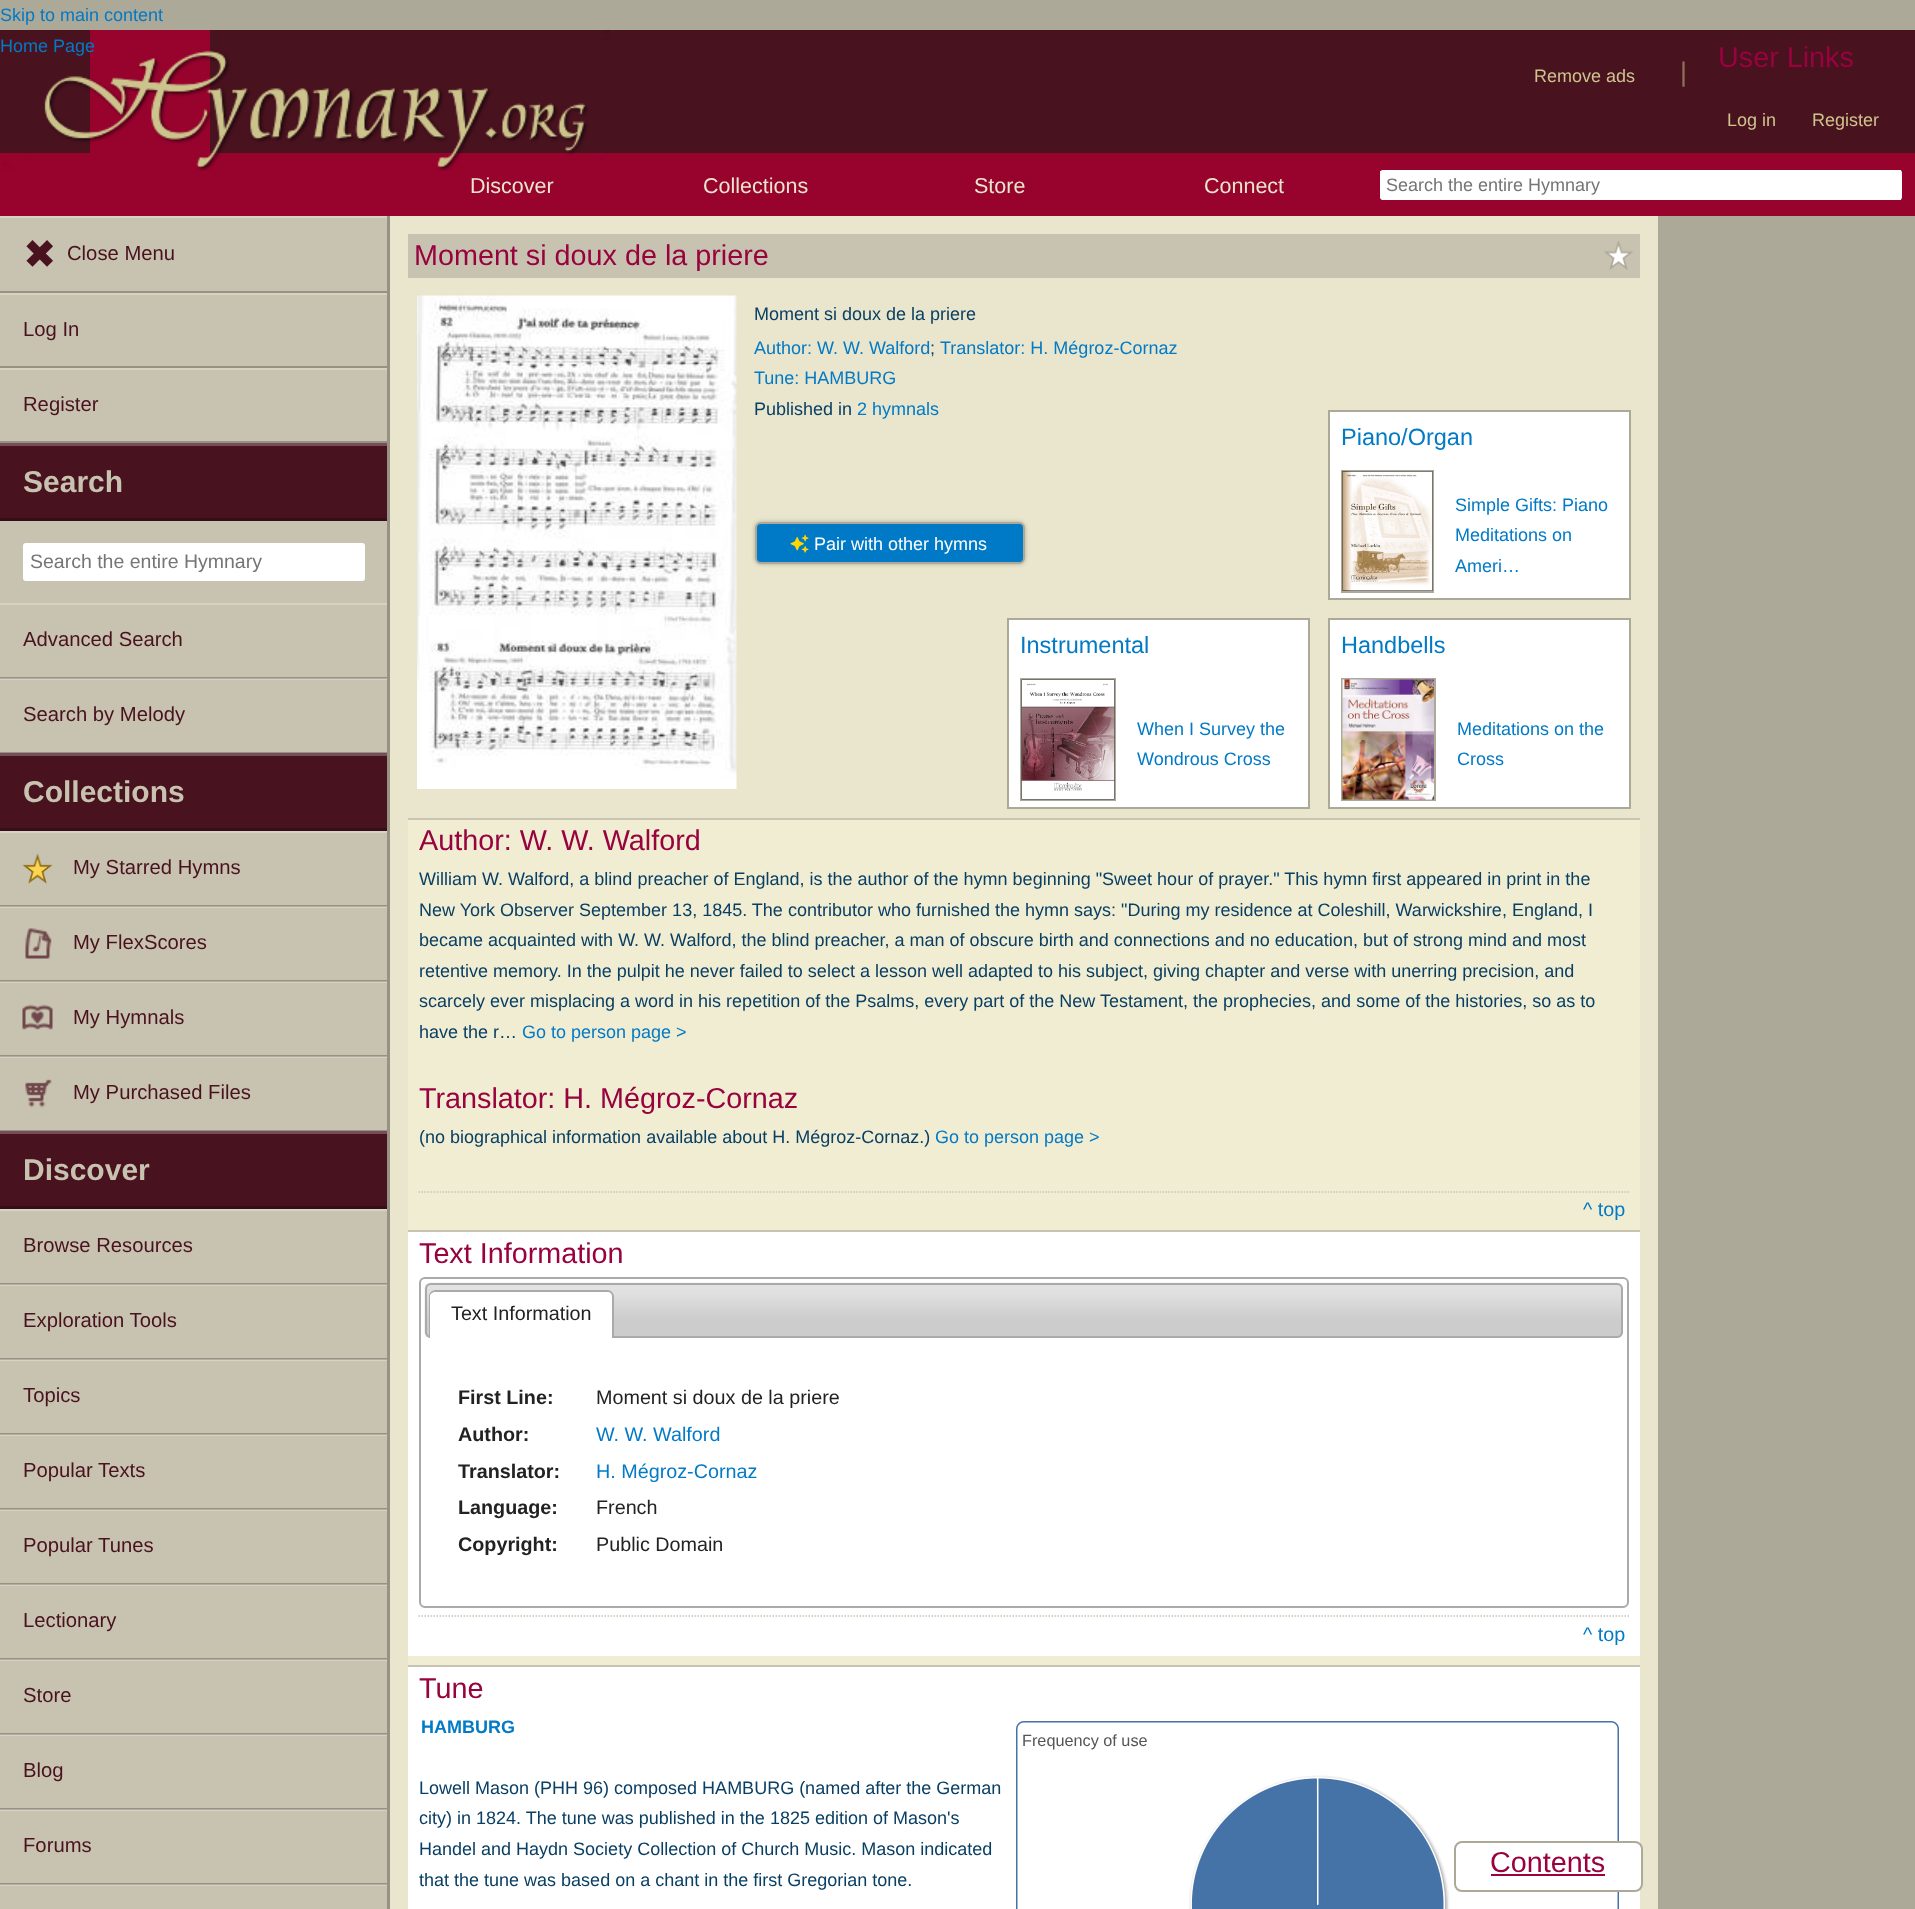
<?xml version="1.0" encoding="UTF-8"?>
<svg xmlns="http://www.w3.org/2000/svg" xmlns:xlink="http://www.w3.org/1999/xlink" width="1915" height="1909">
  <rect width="100%" height="100%" fill="#ada999" />
  <rect y="30" width="1915" height="123" fill="#49121f" />
  <rect x="90" y="30" width="120" height="123" fill="#98032e" />
  <rect y="153" width="1915" height="63" fill="#98032e" />
  <image x="2" y="30" width="607" height="141" xlink:href="image1.png" />
  <rect x="1380" y="170" width="522" height="30" rx="3" fill="#ffffff" />
  <rect x="1382" y="170" width="519" height="1" fill="#ffffff" />
  <rect x="1382" y="199" width="519" height="1" fill="#ffffff" />
  <rect x="1380" y="171" width="1" height="27" fill="#ffffff" />
  <rect y="218" width="387" height="1691" fill="#c8c3b0" />
  <rect y="1885" width="387" height="1" fill="#d6d2c4" />
  <rect y="1810" width="387" height="1" fill="#d6d2c4" />
  <rect y="1735" width="387" height="1" fill="#d6d2c4" />
  <rect y="1660" width="387" height="1" fill="#d6d2c4" />
  <rect y="1585" width="387" height="1" fill="#d6d2c4" />
  <rect y="1510" width="387" height="1" fill="#d6d2c4" />
  <rect y="1435" width="387" height="1" fill="#d6d2c4" />
  <rect y="1360" width="387" height="1" fill="#d6d2c4" />
  <rect y="1285" width="387" height="1" fill="#d6d2c4" />
  <rect y="1057" width="387" height="1" fill="#d6d2c4" />
  <rect y="982" width="387" height="1" fill="#d6d2c4" />
  <rect y="907" width="387" height="1" fill="#d6d2c4" />
  <rect y="679" width="387" height="1" fill="#d6d2c4" />
  <rect x="387" y="216" width="3" height="1693" fill="#969284" />
  <rect y="216" width="387" height="2" fill="#d6d2c4" />
  <rect y="291" width="387" height="2" fill="#969284" />
  <rect y="293" width="387" height="2" fill="#d6d2c4" />
  <rect y="366" width="387" height="2" fill="#969284" />
  <rect y="368" width="387" height="2" fill="#d6d2c4" />
  <rect y="441" width="387" height="2" fill="#969284" />
  <rect y="446" width="387" height="72" fill="#49121f" />
  <rect y="443" width="387" height="3" fill="#774d57" />
  <rect y="518" width="387" height="3" fill="#370e17" />
  <rect x="23" y="543" width="342" height="38" rx="3" fill="#ffffff" />
  <rect y="603" width="387" height="2" fill="#d6d2c4" />
  <rect y="677" width="387" height="1" fill="#969284" />
  <rect y="678" width="387" height="1" fill="#b0ada3" />
  <rect y="752" width="387" height="1" fill="#969284" />
  <rect y="756" width="387" height="72" fill="#49121f" />
  <rect y="753" width="387" height="3" fill="#774d57" />
  <rect y="828" width="387" height="3" fill="#370e17" />
  <rect y="831" width="387" height="2" fill="#d6d2c4" />
  <rect y="905" width="387" height="1" fill="#969284" />
  <rect y="906" width="387" height="1" fill="#b0ada3" />
  <image x="22" y="853" width="31" height="31" xlink:href="image2.png" />
  <rect y="980" width="387" height="1" fill="#969284" />
  <rect y="981" width="387" height="1" fill="#b0ada3" />
  <image x="25" y="928" width="27" height="31" xlink:href="image3.png" />
  <rect y="1055" width="387" height="1" fill="#969284" />
  <rect y="1056" width="387" height="1" fill="#b0ada3" />
  <image x="22" y="1004" width="31" height="26" xlink:href="image4.png" />
  <rect y="1130" width="387" height="1" fill="#969284" />
  <image x="25" y="1079" width="27" height="29" xlink:href="image5.png" />
  <rect y="1134" width="387" height="72" fill="#49121f" />
  <rect y="1131" width="387" height="3" fill="#774d57" />
  <rect y="1206" width="387" height="3" fill="#370e17" />
  <rect y="1209" width="387" height="2" fill="#d6d2c4" />
  <rect y="1283" width="387" height="1" fill="#969284" />
  <rect y="1284" width="387" height="1" fill="#b0ada3" />
  <rect y="1358" width="387" height="1" fill="#969284" />
  <rect y="1359" width="387" height="1" fill="#b0ada3" />
  <rect y="1433" width="387" height="1" fill="#969284" />
  <rect y="1434" width="387" height="1" fill="#b0ada3" />
  <rect y="1508" width="387" height="1" fill="#969284" />
  <rect y="1509" width="387" height="1" fill="#b0ada3" />
  <rect y="1583" width="387" height="1" fill="#969284" />
  <rect y="1584" width="387" height="1" fill="#b0ada3" />
  <rect y="1658" width="387" height="1" fill="#969284" />
  <rect y="1659" width="387" height="1" fill="#b0ada3" />
  <rect y="1733" width="387" height="1" fill="#969284" />
  <rect y="1734" width="387" height="1" fill="#b0ada3" />
  <rect y="1808" width="387" height="1" fill="#969284" />
  <rect y="1809" width="387" height="1" fill="#b0ada3" />
  <rect y="1883" width="387" height="1" fill="#969284" />
  <rect y="1884" width="387" height="1" fill="#b0ada3" />
  <rect x="390" y="216" width="1268" height="1693" fill="#e9e6cd" />
  <rect x="408" y="234" width="1232" height="44" fill="#c8c3b0" />
  <image x="1604" y="241" width="29" height="29" xlink:href="image6.png" />
  <image x="417" y="295" width="320" height="494" xlink:href="image7.png" />
  <rect x="755" y="522" width="270" height="42" rx="6" fill="#ada999" filter="blur(2px)" />
  <rect x="756" y="523" width="268" height="40" rx="5" fill="#007ac6" stroke="#ada999" stroke-width="2" />
  <image x="790" y="534" width="19" height="19" xlink:href="image8.png" />
  <rect x="1329" y="411" width="301" height="188" fill="#ffffff" stroke="#ada999" stroke-width="2" />
  <rect x="1342" y="471" width="91" height="121" fill="none" stroke="#ada999" stroke-width="2" />
  <image x="1342" y="471" width="91" height="120" xlink:href="image9.png" />
  <rect x="1008" y="619" width="301" height="189" fill="#ffffff" stroke="#ada999" stroke-width="2" />
  <rect x="1021" y="679" width="94" height="121" fill="none" stroke="#ada999" stroke-width="2" />
  <image x="1021" y="679" width="94" height="121" xlink:href="image10.png" />
  <rect x="1329" y="619" width="301" height="189" fill="#ffffff" stroke="#ada999" stroke-width="2" />
  <rect x="1342" y="679" width="93" height="121" fill="none" stroke="#ada999" stroke-width="2" />
  <image x="1342" y="679" width="92" height="121" xlink:href="image11.png" />
  <rect x="408" y="820" width="1232" height="410" fill="#f0edd3" />
  <rect x="408" y="818" width="1232" height="2" fill="#c9c4b1" />
  <path d="M 418.5 1192 h 1210.5" fill="none" stroke="#c9c4b1" stroke-width="1.5" stroke-dasharray="1.5 1.5" />
  <rect x="408" y="1232" width="1232" height="424" fill="#ffffff" />
  <rect x="408" y="1230" width="1232" height="2" fill="#c9c4b1" />
  <rect x="420" y="1278" width="1208" height="329" rx="5" fill="none" stroke="#aaaaaa" stroke-width="2" />
  <image x="424" y="1282" width="1199" height="56" xlink:href="image12.png" />
  <rect x="426" y="1284" width="1196" height="53" rx="5" fill="none" stroke="#aaaaaa" stroke-width="2" />
  <path d="M 435 1290 h 173 c 3.5 0 6 2.5 6 6 v 42 h -185 v -42 c 0 -3.5 2.5 -6 6 -6 z" fill="#ffffff" />
  <image x="429" y="1290" width="4" height="5" xlink:href="image13.png" />
  <path d="M 435 1290 h 173 c 3 0 6 3 6 6 v 42 h -185 v -42 c 0 -3 3 -6 6 -6 z m 0 2 h 173 c 2 0 4 2 4 4 v 42 h -182 v -42 c 0 -2 3 -4 5 -4 z" fill="#aaaaaa" fill-rule="evenodd" />
  <path d="M 418.5 1616 h 1210.5" fill="none" stroke="#c9c4b1" stroke-width="1.5" stroke-dasharray="1.5 1.5" />
  <rect x="408" y="1656" width="1232" height="9" fill="#f0edd3" />
  <rect x="408" y="1667" width="1232" height="242" fill="#ffffff" />
  <rect x="408" y="1665" width="1232" height="2" fill="#c9c4b1" />
  <image x="1016" y="1721" width="603" height="188" xlink:href="image14.png" />
  <rect x="1455" y="1842" width="187" height="49" rx="7" fill="#ffffff" stroke="#ada999" stroke-width="2" />
  <rect x="1491" y="1874" width="114" height="2" fill="#98023e" />
  <text x="0" y="21" style="font-family: Liberation Sans; font-size: 18px; fill: #027ac6">Skip to main content</text>
  <text x="0" y="52" style="font-family: Liberation Sans; font-size: 18px; fill: #027ac6">Home Page</text>
  <text x="1534" y="82" style="font-family: Liberation Sans; font-size: 18px; fill: #cec48d">Remove ads</text>
  <text x="1680" y="81" style="font-family: Liberation Sans; font-size: 27px; fill: #907159">|</text>
  <text x="1718" y="67" style="font-family: Liberation Sans; font-size: 28.75px; fill: #98023e">User Links</text>
  <text x="1727" y="126" style="font-family: Liberation Sans; font-size: 18px; fill: #cec48d">Log in</text>
  <text x="1812" y="126" style="font-family: Liberation Sans; font-size: 18px; fill: #cec48d">Register</text>
  <text x="470" y="193" style="font-family: Liberation Sans; font-size: 21.5px; fill: #e9e6cd">Discover</text>
  <text x="703" y="193" style="font-family: Liberation Sans; font-size: 21.5px; fill: #e9e6cd">Collections</text>
  <text x="974" y="193" style="font-family: Liberation Sans; font-size: 21.5px; fill: #e9e6cd">Store</text>
  <text x="1204" y="193" style="font-family: Liberation Sans; font-size: 21.5px; fill: #e9e6cd">Connect</text>
  <text x="1386" y="191" style="font-family: Liberation Sans; font-size: 18px; fill: #757575">Search the entire Hymnary</text>
  <text x="23" y="268" style="font-family: DejaVu Sans; font-size: 40px; fill: #49121f">✖</text>
  <text x="67" y="260" style="font-family: Liberation Sans; font-size: 20.25px; fill: #49121f">Close Menu</text>
  <text x="23" y="336" style="font-family: Liberation Sans; font-size: 20.25px; fill: #49121f">Log In</text>
  <text x="23" y="411" style="font-family: Liberation Sans; font-size: 20.25px; fill: #49121f">Register</text>
  <text x="23" y="492" style="font-family: Liberation Sans; font-size: 30px; font-weight: bold; fill: #c8c3b0">Search</text>
  <text x="30" y="568" style="font-family: Liberation Sans; font-size: 19.5px; fill: #757575">Search the entire Hymnary</text>
  <text x="23" y="646" style="font-family: Liberation Sans; font-size: 20.25px; fill: #49121f">Advanced Search</text>
  <text x="23" y="721" style="font-family: Liberation Sans; font-size: 20.25px; fill: #49121f">Search by Melody</text>
  <text x="23" y="802" style="font-family: Liberation Sans; font-size: 30px; font-weight: bold; fill: #c8c3b0">Collections</text>
  <text x="73" y="874" style="font-family: Liberation Sans; font-size: 20.25px; fill: #49121f">My Starred Hymns</text>
  <text x="73" y="949" style="font-family: Liberation Sans; font-size: 20.25px; fill: #49121f">My FlexScores</text>
  <text x="73" y="1024" style="font-family: Liberation Sans; font-size: 20.25px; fill: #49121f">My Hymnals</text>
  <text x="73" y="1099" style="font-family: Liberation Sans; font-size: 20.25px; fill: #49121f">My Purchased Files</text>
  <text x="23" y="1180" style="font-family: Liberation Sans; font-size: 30px; font-weight: bold; fill: #c8c3b0">Discover</text>
  <text x="23" y="1252" style="font-family: Liberation Sans; font-size: 20.25px; fill: #49121f">Browse Resources</text>
  <text x="23" y="1327" style="font-family: Liberation Sans; font-size: 20.25px; fill: #49121f">Exploration Tools</text>
  <text x="23" y="1402" style="font-family: Liberation Sans; font-size: 20.25px; fill: #49121f">Topics</text>
  <text x="23" y="1477" style="font-family: Liberation Sans; font-size: 20.25px; fill: #49121f">Popular Texts</text>
  <text x="23" y="1552" style="font-family: Liberation Sans; font-size: 20.25px; fill: #49121f">Popular Tunes</text>
  <text x="23" y="1627" style="font-family: Liberation Sans; font-size: 20.25px; fill: #49121f">Lectionary</text>
  <text x="23" y="1702" style="font-family: Liberation Sans; font-size: 20.25px; fill: #49121f">Store</text>
  <text x="23" y="1777" style="font-family: Liberation Sans; font-size: 20.25px; fill: #49121f">Blog</text>
  <text x="23" y="1852" style="font-family: Liberation Sans; font-size: 20.25px; fill: #49121f">Forums</text>
  <text x="414" y="265" style="font-family: Liberation Sans; font-size: 28.75px; fill: #98023e">Moment si doux de la priere</text>
  <text x="754" y="320" style="font-family: Liberation Sans; font-size: 18px; fill: #0a3f64">Moment si doux de la priere</text>
  <text x="754" y="354" style="font-family: Liberation Sans; font-size: 18px; fill: #027ac6">Author: W. W. Walford</text>
  <text x="930" y="354" style="font-family: Liberation Sans; font-size: 18px; fill: #0a3f64">;</text>
  <text x="940" y="354" style="font-family: Liberation Sans; font-size: 18px; fill: #027ac6">Translator: H. Mégroz-Cornaz</text>
  <text x="754" y="384" style="font-family: Liberation Sans; font-size: 18px; fill: #027ac6">Tune: HAMBURG</text>
  <text x="754" y="415" style="font-family: Liberation Sans; font-size: 18px; fill: #0a3f64">Published in</text>
  <text x="857" y="415" style="font-family: Liberation Sans; font-size: 18px; fill: #027ac6">2 hymnals</text>
  <text x="814" y="550" style="font-family: Liberation Sans; font-size: 18px; fill: #ffffff">Pair with other hymns</text>
  <text x="1341" y="445" style="font-family: Liberation Sans; font-size: 23.5px; fill: #027ac6">Piano/Organ</text>
  <text x="1455" y="511" style="font-family: Liberation Sans; font-size: 18px; fill: #027ac6">Simple Gifts: Piano</text>
  <text x="1455" y="541" style="font-family: Liberation Sans; font-size: 18px; fill: #027ac6">Meditations on</text>
  <text x="1455" y="572" style="font-family: Liberation Sans; font-size: 18px; fill: #027ac6">Ameri…</text>
  <text x="1020" y="653" style="font-family: Liberation Sans; font-size: 23.5px; fill: #027ac6">Instrumental</text>
  <text x="1137" y="735" style="font-family: Liberation Sans; font-size: 18px; fill: #027ac6">When I Survey the</text>
  <text x="1137" y="765" style="font-family: Liberation Sans; font-size: 18px; fill: #027ac6">Wondrous Cross</text>
  <text x="1341" y="653" style="font-family: Liberation Sans; font-size: 23.5px; fill: #027ac6">Handbells</text>
  <text x="1457" y="735" style="font-family: Liberation Sans; font-size: 18px; fill: #027ac6">Meditations on the</text>
  <text x="1457" y="765" style="font-family: Liberation Sans; font-size: 18px; fill: #027ac6">Cross</text>
  <text x="419" y="850" style="font-family: Liberation Sans; font-size: 28.75px; fill: #98023e">Author: W. W. Walford</text>
  <text x="419" y="885" style="font-family: Liberation Sans; font-size: 18px; fill: #0a3f64">William W. Walford, a blind preacher of England, is the author of the hymn beginning "Sweet hour of prayer." This hymn first appeared in print in the</text>
  <text x="419" y="916" style="font-family: Liberation Sans; font-size: 18px; fill: #0a3f64">New York Observer September 13, 1845. The contributor who furnished the hymn says: "During my residence at Coleshill, Warwickshire, England, I</text>
  <text x="419" y="946" style="font-family: Liberation Sans; font-size: 18px; fill: #0a3f64">became acquainted with W. W. Walford, the blind preacher, a man of obscure birth and connections and no education, but of strong mind and most</text>
  <text x="419" y="977" style="font-family: Liberation Sans; font-size: 18px; fill: #0a3f64">retentive memory. In the pulpit he never failed to select a lesson well adapted to his subject, giving chapter and verse with unerring precision, and</text>
  <text x="419" y="1007" style="font-family: Liberation Sans; font-size: 18px; fill: #0a3f64">scarcely ever misplacing a word in his repetition of the Psalms, every part of the New Testament, the prophecies, and some of the histories, so as to</text>
  <text x="419" y="1038" style="font-family: Liberation Sans; font-size: 18px; fill: #0a3f64">have the r…</text>
  <text x="522" y="1038" style="font-family: Liberation Sans; font-size: 18px; fill: #027ac6">Go to person page &gt;</text>
  <text x="419" y="1108" style="font-family: Liberation Sans; font-size: 28.75px; fill: #98023e">Translator: H. Mégroz-Cornaz</text>
  <text x="419" y="1143" style="font-family: Liberation Sans; font-size: 18px; fill: #0a3f64">(no biographical information available about H. Mégroz-Cornaz.)</text>
  <text x="935" y="1143" style="font-family: Liberation Sans; font-size: 18px; fill: #027ac6">Go to person page &gt;</text>
  <text x="1583" y="1216" style="font-family: Liberation Sans; font-size: 19.75px; fill: #027ac6">^ top</text>
  <text x="419" y="1263" style="font-family: Liberation Sans; font-size: 28.75px; fill: #98023e">Text Information</text>
  <text x="451" y="1320" style="font-family: Liberation Sans; font-size: 19.75px; fill: #222222">Text Information</text>
  <text x="458" y="1404" style="font-family: Liberation Sans; font-size: 19.75px; font-weight: bold; fill: #222222">First Line:</text>
  <text x="596" y="1404" style="font-family: Liberation Sans; font-size: 19.75px; fill: #222222">Moment si doux de la priere</text>
  <text x="458" y="1441" style="font-family: Liberation Sans; font-size: 19.75px; font-weight: bold; fill: #222222">Author:</text>
  <text x="596" y="1441" style="font-family: Liberation Sans; font-size: 19.75px; fill: #027ac6">W. W. Walford</text>
  <text x="458" y="1478" style="font-family: Liberation Sans; font-size: 19.75px; font-weight: bold; fill: #222222">Translator:</text>
  <text x="596" y="1478" style="font-family: Liberation Sans; font-size: 19.75px; fill: #027ac6">H. Mégroz-Cornaz</text>
  <text x="458" y="1514" style="font-family: Liberation Sans; font-size: 19.75px; font-weight: bold; fill: #222222">Language:</text>
  <text x="596" y="1514" style="font-family: Liberation Sans; font-size: 19.75px; fill: #222222">French</text>
  <text x="458" y="1551" style="font-family: Liberation Sans; font-size: 19.75px; font-weight: bold; fill: #222222">Copyright:</text>
  <text x="596" y="1551" style="font-family: Liberation Sans; font-size: 19.75px; fill: #222222">Public Domain</text>
  <text x="1583" y="1641" style="font-family: Liberation Sans; font-size: 19.75px; fill: #027ac6">^ top</text>
  <text x="419" y="1698" style="font-family: Liberation Sans; font-size: 28.75px; fill: #98023e">Tune</text>
  <text x="421" y="1733" style="font-family: Liberation Sans; font-size: 18px; font-weight: bold; fill: #027ac6">HAMBURG</text>
  <text x="1022" y="1746" style="font-family: Liberation Sans; font-size: 16.25px; fill: #555555">Frequency of use</text>
  <text x="419" y="1794" style="font-family: Liberation Sans; font-size: 18px; fill: #0a3f64">Lowell Mason (PHH 96) composed HAMBURG (named after the German</text>
  <text x="419" y="1824" style="font-family: Liberation Sans; font-size: 18px; fill: #0a3f64">city) in 1824. The tune was published in the 1825 edition of Mason's</text>
  <text x="419" y="1855" style="font-family: Liberation Sans; font-size: 18px; fill: #0a3f64">Handel and Haydn Society Collection of Church Music. Mason indicated</text>
  <text x="419" y="1886" style="font-family: Liberation Sans; font-size: 18px; fill: #0a3f64">that the tune was based on a chant in the first Gregorian tone.</text>
  <text x="1490" y="1872" style="font-family: Liberation Sans; font-size: 28.75px; fill: #98023e">Contents</text>
</svg>
